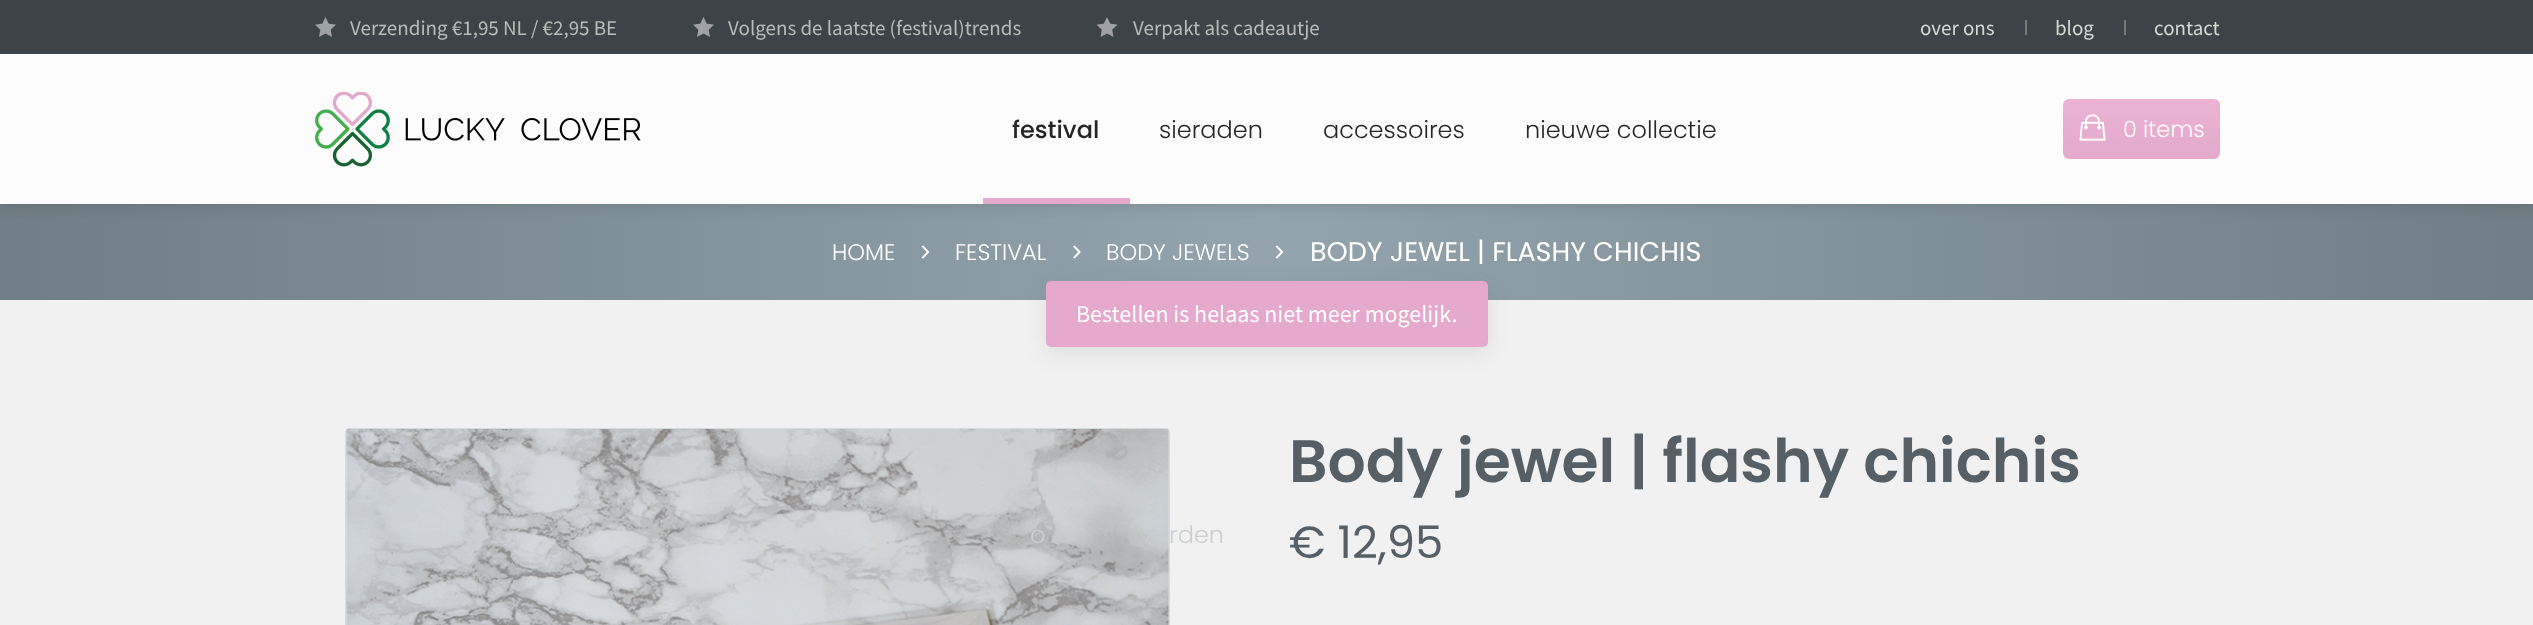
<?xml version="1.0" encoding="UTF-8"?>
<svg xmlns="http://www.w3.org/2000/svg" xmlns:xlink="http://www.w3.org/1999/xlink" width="2533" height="625">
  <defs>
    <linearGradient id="g1" gradientUnits="userSpaceOnUse" x1="0" y1="252" x2="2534" y2="252"><stop offset="0" stop-color="#707e85" /><stop offset="0.5" stop-color="#93a4ad" /><stop offset="1" stop-color="#707e85" /></linearGradient>
    <linearGradient id="g2" gradientUnits="userSpaceOnUse" x1="2141" y1="99" x2="2141" y2="159"><stop offset="0" stop-color="#eab3d4" /><stop offset="1" stop-color="#e4a9cc" /></linearGradient>
  </defs>
  <rect width="100%" height="100%" fill="#ffffff" />
  <rect y="204" width="2533" height="96" fill="url(#g1)" />
  <rect width="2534" height="204" fill="#000000" fill-opacity="0.15" filter="blur(7.5px)" />
  <rect y="54" width="2533" height="150" fill="#fcfcfc" />
  <rect width="2533" height="54" fill="#3d4448" />
  <image x="315" y="17" width="21" height="20" xlink:href="image1.png" />
  <image x="693" y="17" width="21" height="20" xlink:href="image1.png" />
  <image x="1097" y="17" width="21" height="20" xlink:href="image2.png" />
  <rect x="2025" y="20" width="2" height="15" fill="#717d73" />
  <rect x="2124" y="20" width="2" height="15" fill="#717d73" />
  <image x="315" y="92" width="326" height="75" xlink:href="image3.png" />
  <rect x="983" y="198" width="147" height="6" fill="#e4a9cd" />
  <rect x="2063" y="99" width="157" height="60" rx="6" fill="url(#g2)" />
  <image x="2079" y="114" width="27" height="27" xlink:href="image4.png" />
  <image x="921" y="245" width="9" height="14" xlink:href="image5.png" />
  <image x="1073" y="245" width="8" height="14" xlink:href="image6.png" />
  <image x="1275" y="245" width="9" height="14" xlink:href="image7.png" />
  <rect y="300" width="2533" height="325" fill="#f1f1f1" />
  <rect x="1046" y="287" width="442" height="66" rx="5" fill="#2c313b" fill-opacity="0.1" filter="blur(11px)" />
  <rect x="1046" y="281" width="442" height="66" rx="5" fill="#e4a9cc" />
  <rect x="346" y="429" width="823" height="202" rx="4" fill="none" stroke="#d6dbde" stroke-width="2" />
  <image x="346" y="429" width="823" height="196" xlink:href="image8.png" />
  <text x="350" y="35" style="font-family: Source Sans Pro; font-size: 21px; fill: #b9bdb9">Verzending €1,95 NL / €2,95 BE</text>
  <text x="728" y="35" style="font-family: Source Sans Pro; font-size: 21px; fill: #b9bdb9">Volgens de laatste (festival)trends</text>
  <text x="1133" y="35" style="font-family: Source Sans Pro; font-size: 21px; fill: #b9bdb9">Verpakt als cadeautje</text>
  <text x="1920" y="35" style="font-family: Source Sans Pro; font-size: 21px; fill: #d0dbd2">over ons</text>
  <text x="2055" y="35" style="font-family: Source Sans Pro; font-size: 21px; fill: #d0dbd2">blog</text>
  <text x="2154" y="35" style="font-family: Source Sans Pro; font-size: 21px; fill: #d0dbd2">contact</text>
  <text x="1012" y="138" style="font-family: Poppins; font-size: 24px; font-weight: 500; fill: #262626">festival</text>
  <text x="1030" y="543" style="font-family: Poppins; font-size: 24px; font-weight: 300; fill: #cdcecf">o</text>
  <text x="1169" y="543" style="font-family: Poppins; font-size: 24px; font-weight: 300; fill: #cdcecf">rden</text>
  <text x="1159" y="138" style="font-family: Poppins; font-size: 24px; font-weight: 300; fill: #262626">sieraden</text>
  <text x="1323" y="138" style="font-family: Poppins; font-size: 24px; font-weight: 300; fill: #262626">accessoires</text>
  <text x="1525" y="138" style="font-family: Poppins; font-size: 24px; font-weight: 300; fill: #262626">nieuwe collectie</text>
  <text x="2123" y="137" style="font-family: Poppins; font-size: 22.5px; font-weight: 300; fill: #ffffff">0 items</text>
  <text x="832" y="260" style="font-family: Poppins; font-size: 22.5px; font-weight: 300; fill: #ffffff">HOME</text>
  <text x="955" y="260" style="font-family: Poppins; font-size: 22.5px; font-weight: 300; fill: #ffffff">FESTIVAL</text>
  <text x="1106" y="260" style="font-family: Poppins; font-size: 22.5px; font-weight: 300; fill: #ffffff">BODY JEWELS</text>
  <text x="1310" y="261" style="font-family: Poppins; font-size: 27px; fill: #ffffff">BODY JEWEL | FLASHY CHICHIS</text>
  <text x="1076" y="322" style="font-family: Source Sans Pro; font-size: 24px; fill: #ffffff">Bestellen is helaas niet meer mogelijk.</text>
  <text x="1289" y="482" style="font-family: Poppins; font-size: 60px; font-weight: 600; fill: #555f65">Body jewel | flashy chichis</text>
  <text x="1289" y="558" style="font-family: Poppins; font-size: 45px; fill: #555f65">€ 12,95</text>
</svg>
